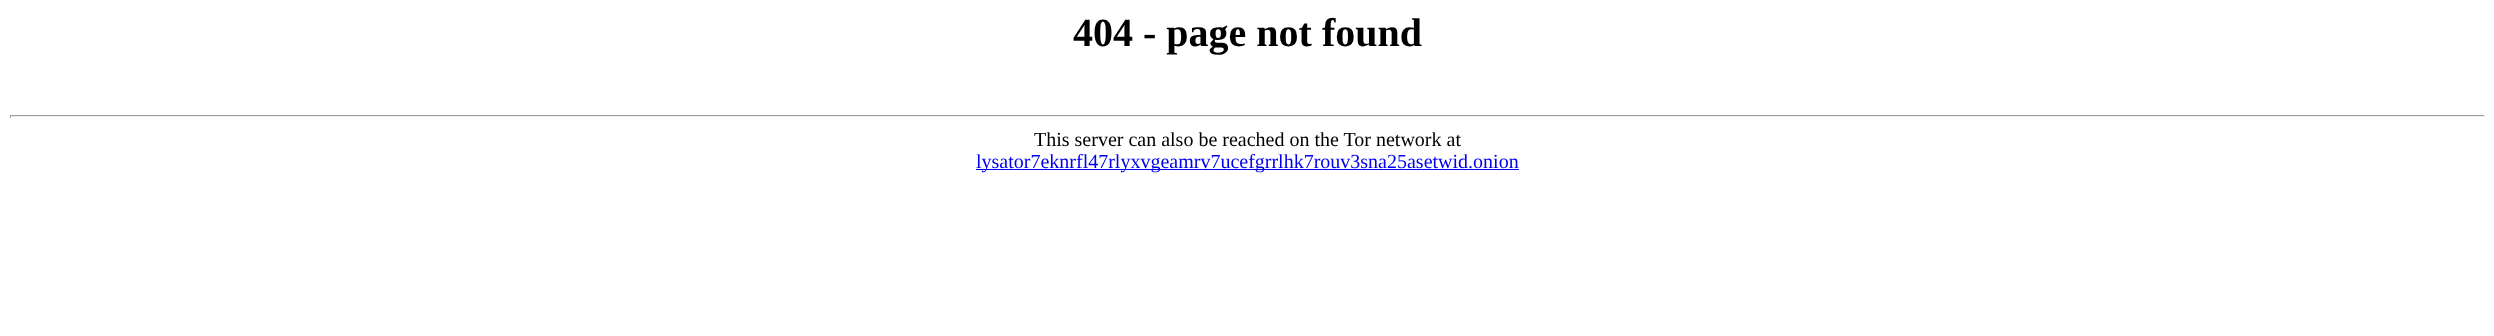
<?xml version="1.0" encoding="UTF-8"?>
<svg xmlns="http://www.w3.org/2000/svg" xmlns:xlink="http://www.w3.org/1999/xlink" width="2494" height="336">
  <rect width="100%" height="100%" fill="#ffffff" />
  <rect x="10" y="115" width="2475" height="1" fill="#9f9f9f" />
  <rect x="2484" y="115" width="1" height="3" fill="#eeeeee" />
  <rect x="10" y="116" width="2475" height="1" fill="#eeeeee" />
  <rect x="10" y="115" width="1" height="3" fill="#9f9f9f" />
  <rect x="976" y="169" width="543" height="1" fill="#0000ee" />
  <text x="1073" y="46" style="font-family: Liberation Serif; font-size: 40px; font-weight: bold; fill: #000000">404 - page not found</text>
  <text x="1034" y="146" style="font-family: Liberation Serif; font-size: 20px; fill: #000000">This server can also be reached on the Tor network at</text>
  <text x="976" y="168" style="font-family: Liberation Serif; font-size: 20px; fill: #0000ee">lysator7eknrfl47rlyxvgeamrv7ucefgrrlhk7rouv3sna25asetwid.onion</text>
</svg>
